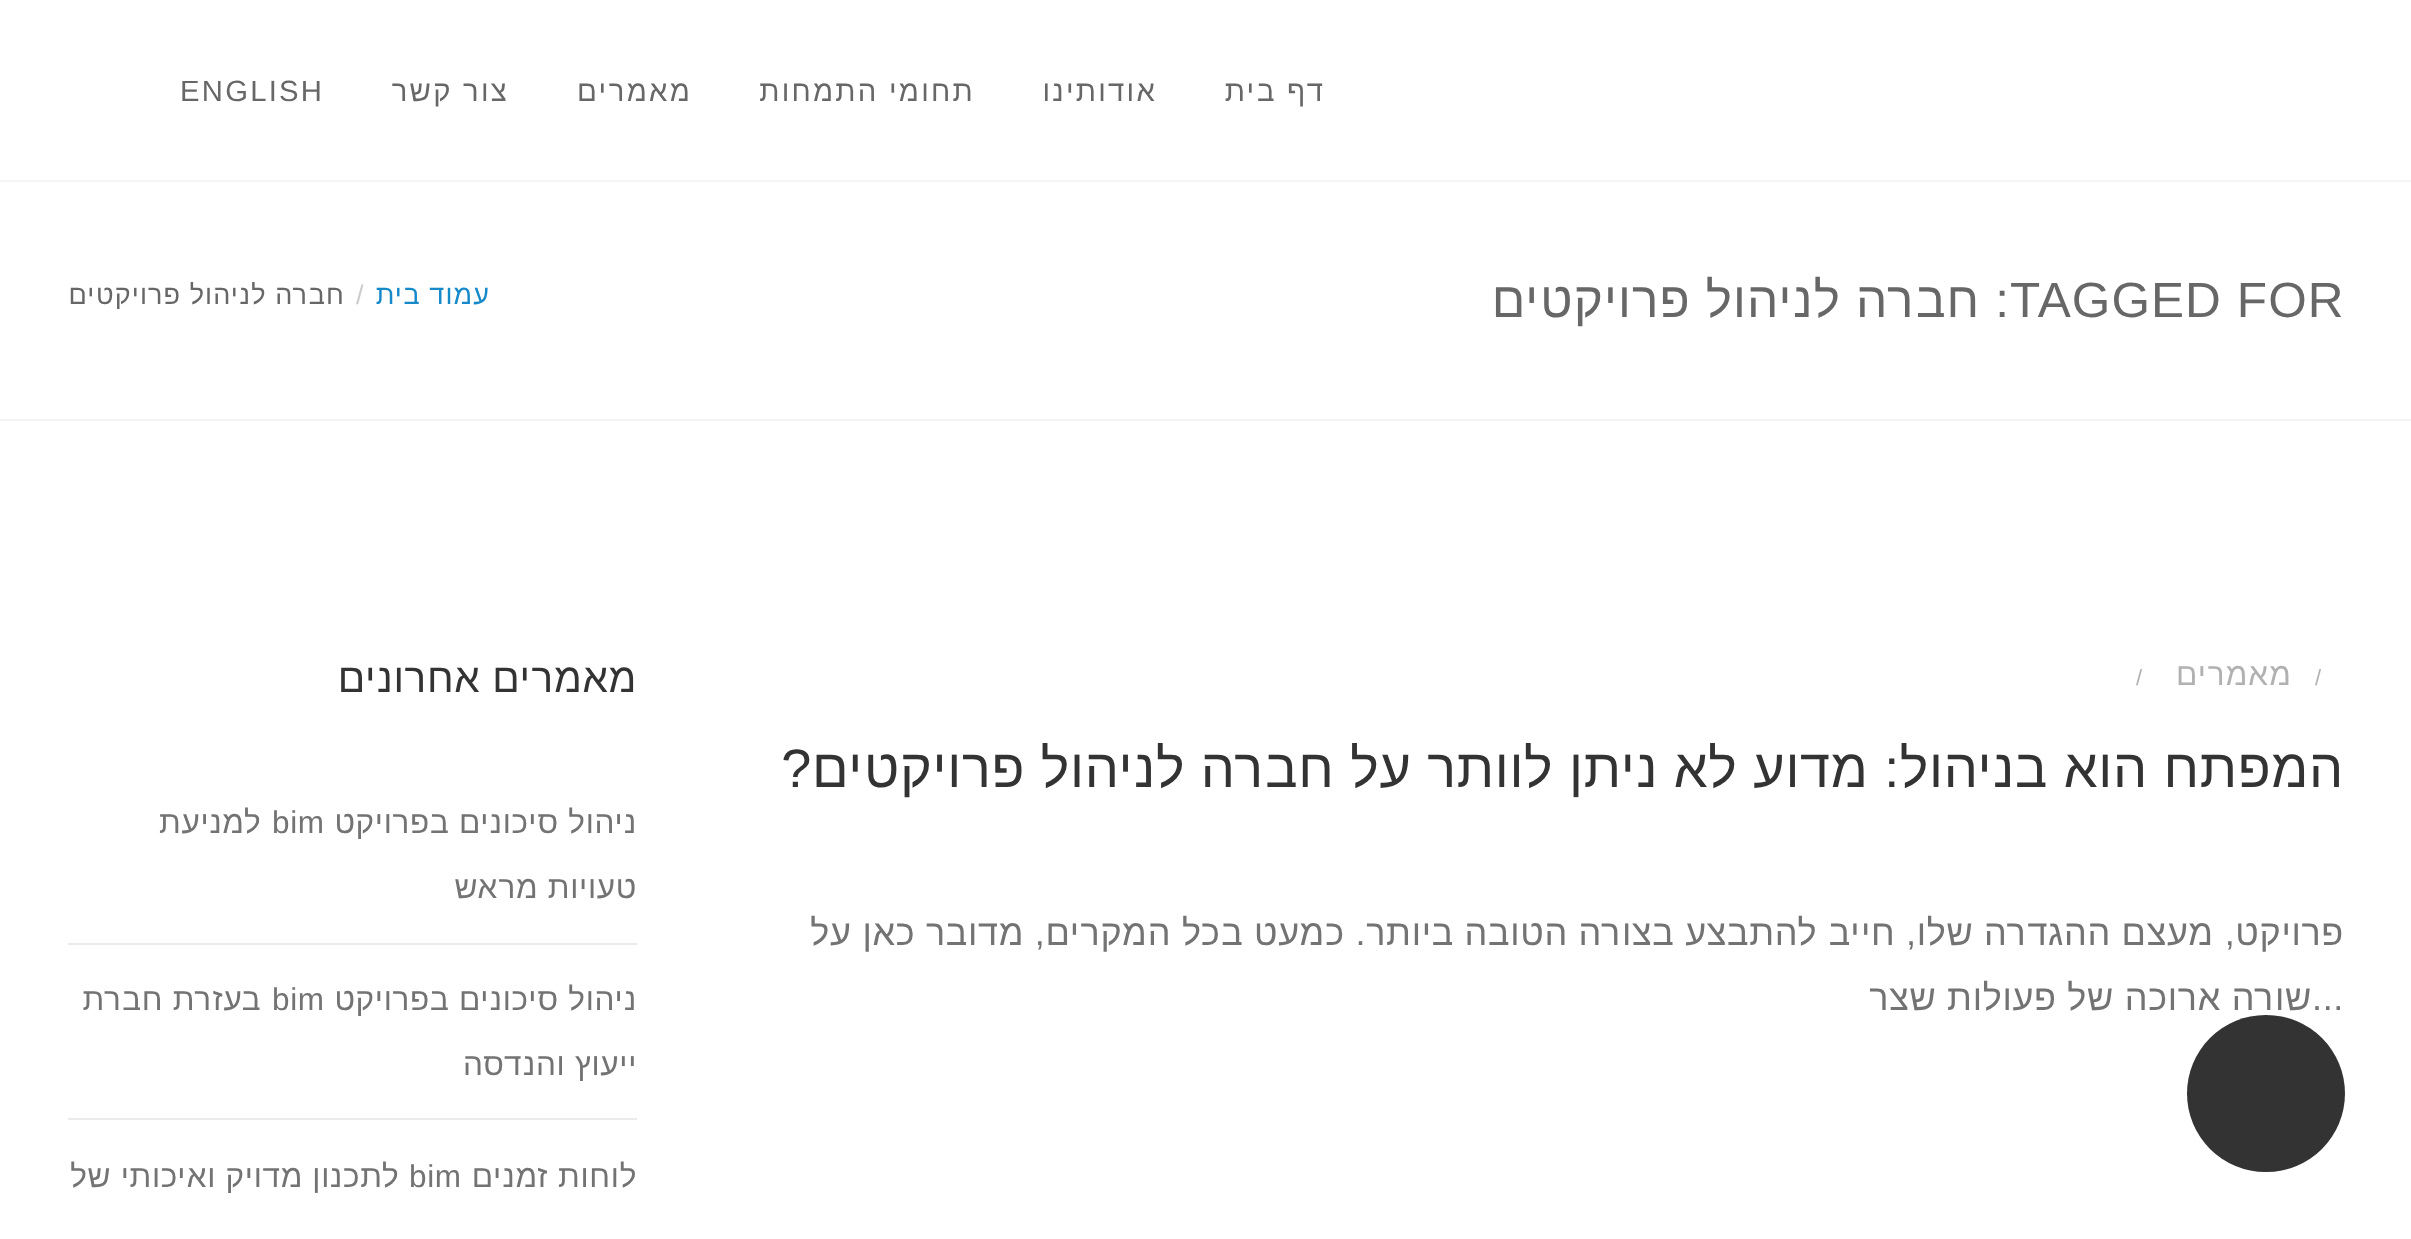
<?xml version="1.0" encoding="UTF-8"?>
<svg xmlns="http://www.w3.org/2000/svg" xmlns:xlink="http://www.w3.org/1999/xlink" width="2411" height="1239">
  <rect width="100%" height="100%" fill="#ffffff" />
  <rect y="180" width="2411" height="2" fill="#f4f4f4" />
  <rect y="419" width="2411" height="2" fill="#f4f4f4" />
  <rect x="68" y="943" width="569" height="2" fill="#ebebeb" />
  <rect x="68" y="1118" width="569" height="2" fill="#ebebeb" />
  <rect x="2187" y="1015" width="158" height="157" rx="78.5" fill="#000000" fill-opacity="0.8" />
  <text x="1326" y="101" style="font-family: Arimo; font-size: 29.25px; letter-spacing: 2.25px; direction: rtl; fill: #676767">דף בית</text>
  <text x="1157" y="101" style="font-family: Arimo; font-size: 29.25px; letter-spacing: 2.25px; direction: rtl; fill: #676767">אודותינו</text>
  <text x="975" y="101" style="font-family: Arimo; font-size: 29.25px; letter-spacing: 2.25px; direction: rtl; fill: #676767">תחומי התמחות</text>
  <text x="692" y="101" style="font-family: Arimo; font-size: 29.25px; letter-spacing: 2.25px; direction: rtl; fill: #676767">מאמרים</text>
  <text x="509" y="101" style="font-family: Arimo; font-size: 29.25px; letter-spacing: 2.25px; direction: rtl; fill: #676767">צור קשר</text>
  <text x="180" y="101" style="font-family: Arimo; font-size: 29.25px; letter-spacing: 2.25px; fill: #676767">ENGLISH</text>
  <text x="2010" y="317" style="font-family: Arimo; font-size: 49.5px; letter-spacing: 1.1px; fill: #676767">TAGGED FOR</text>
  <text x="2010" y="317" style="font-family: Arimo; font-size: 49.5px; letter-spacing: 1.1px; direction: rtl; fill: #676767">: חברה לניהול פרויקטים</text>
  <text x="490" y="304" style="font-family: Arimo; font-size: 27px; letter-spacing: 1.1px; direction: rtl; fill: #168ac9">עמוד בית</text>
  <text x="356" y="304" style="font-family: Arimo; font-size: 27px; letter-spacing: 1.1px; fill: #cccccc">/</text>
  <text x="345" y="304" style="font-family: Arimo; font-size: 27px; letter-spacing: 1.1px; direction: rtl; fill: #676767">חברה לניהול פרויקטים</text>
  <text x="2315" y="685" style="font-family: Arimo; font-size: 22px; letter-spacing: 1.1px; fill: #b1b1b1">/</text>
  <text x="2292" y="685" style="font-family: Arimo; font-size: 31.5px; letter-spacing: 1.1px; direction: rtl; fill: #b1b1b1">מאמרים</text>
  <text x="2136" y="685" style="font-family: Arimo; font-size: 22px; letter-spacing: 1.1px; fill: #b1b1b1">/</text>
  <text x="2344" y="787" style="font-family: Arimo; font-size: 54px; letter-spacing: 0.67px; direction: rtl; fill: #333333">המפתח הוא בניהול: מדוע לא ניתן לוותר על חברה לניהול פרויקטים?</text>
  <text x="2344" y="945" style="font-family: Arimo; font-size: 36px; letter-spacing: 0.67px; direction: rtl; fill: #737373">פרויקט, מעצם ההגדרה שלו, חייב להתבצע בצורה הטובה ביותר. כמעט בכל המקרים, מדובר כאן על</text>
  <text x="2312" y="1010" style="font-family: Arimo; font-size: 36px; letter-spacing: 0.67px; fill: #737373">...</text>
  <text x="2312" y="1010" style="font-family: Arimo; font-size: 36px; letter-spacing: 0.67px; direction: rtl; fill: #737373">שורה ארוכה של פעולות שצר</text>
  <text x="637" y="692" style="font-family: Arimo; font-size: 40.5px; letter-spacing: 0.67px; direction: rtl; fill: #333333">מאמרים אחרונים</text>
  <text x="637" y="833" style="font-family: Arimo; font-size: 31.5px; letter-spacing: 0.67px; direction: rtl; fill: #737373">ניהול סיכונים בפרויקט</text>
  <text x="272" y="833" style="font-family: Arimo; font-size: 31.5px; letter-spacing: 0.67px; fill: #737373">bim</text>
  <text x="262" y="833" style="font-family: Arimo; font-size: 31.5px; letter-spacing: 0.67px; direction: rtl; fill: #737373">למניעת</text>
  <text x="637" y="898" style="font-family: Arimo; font-size: 31.5px; letter-spacing: 0.67px; direction: rtl; fill: #737373">טעויות מראש</text>
  <text x="637" y="1010" style="font-family: Arimo; font-size: 31.5px; letter-spacing: 0.67px; direction: rtl; fill: #737373">ניהול סיכונים בפרויקט</text>
  <text x="272" y="1010" style="font-family: Arimo; font-size: 31.5px; letter-spacing: 0.67px; fill: #737373">bim</text>
  <text x="262" y="1010" style="font-family: Arimo; font-size: 31.5px; letter-spacing: 0.67px; direction: rtl; fill: #737373">בעזרת חברת</text>
  <text x="637" y="1075" style="font-family: Arimo; font-size: 31.5px; letter-spacing: 0.67px; direction: rtl; fill: #737373">ייעוץ והנדסה</text>
  <text x="637" y="1187" style="font-family: Arimo; font-size: 31.5px; letter-spacing: 0.67px; direction: rtl; fill: #737373">לוחות זמנים</text>
  <text x="409" y="1187" style="font-family: Arimo; font-size: 31.5px; letter-spacing: 0.67px; fill: #737373">bim</text>
  <text x="400" y="1187" style="font-family: Arimo; font-size: 31.5px; letter-spacing: 0.67px; direction: rtl; fill: #737373">לתכנון מדויק ואיכותי של</text>
</svg>
